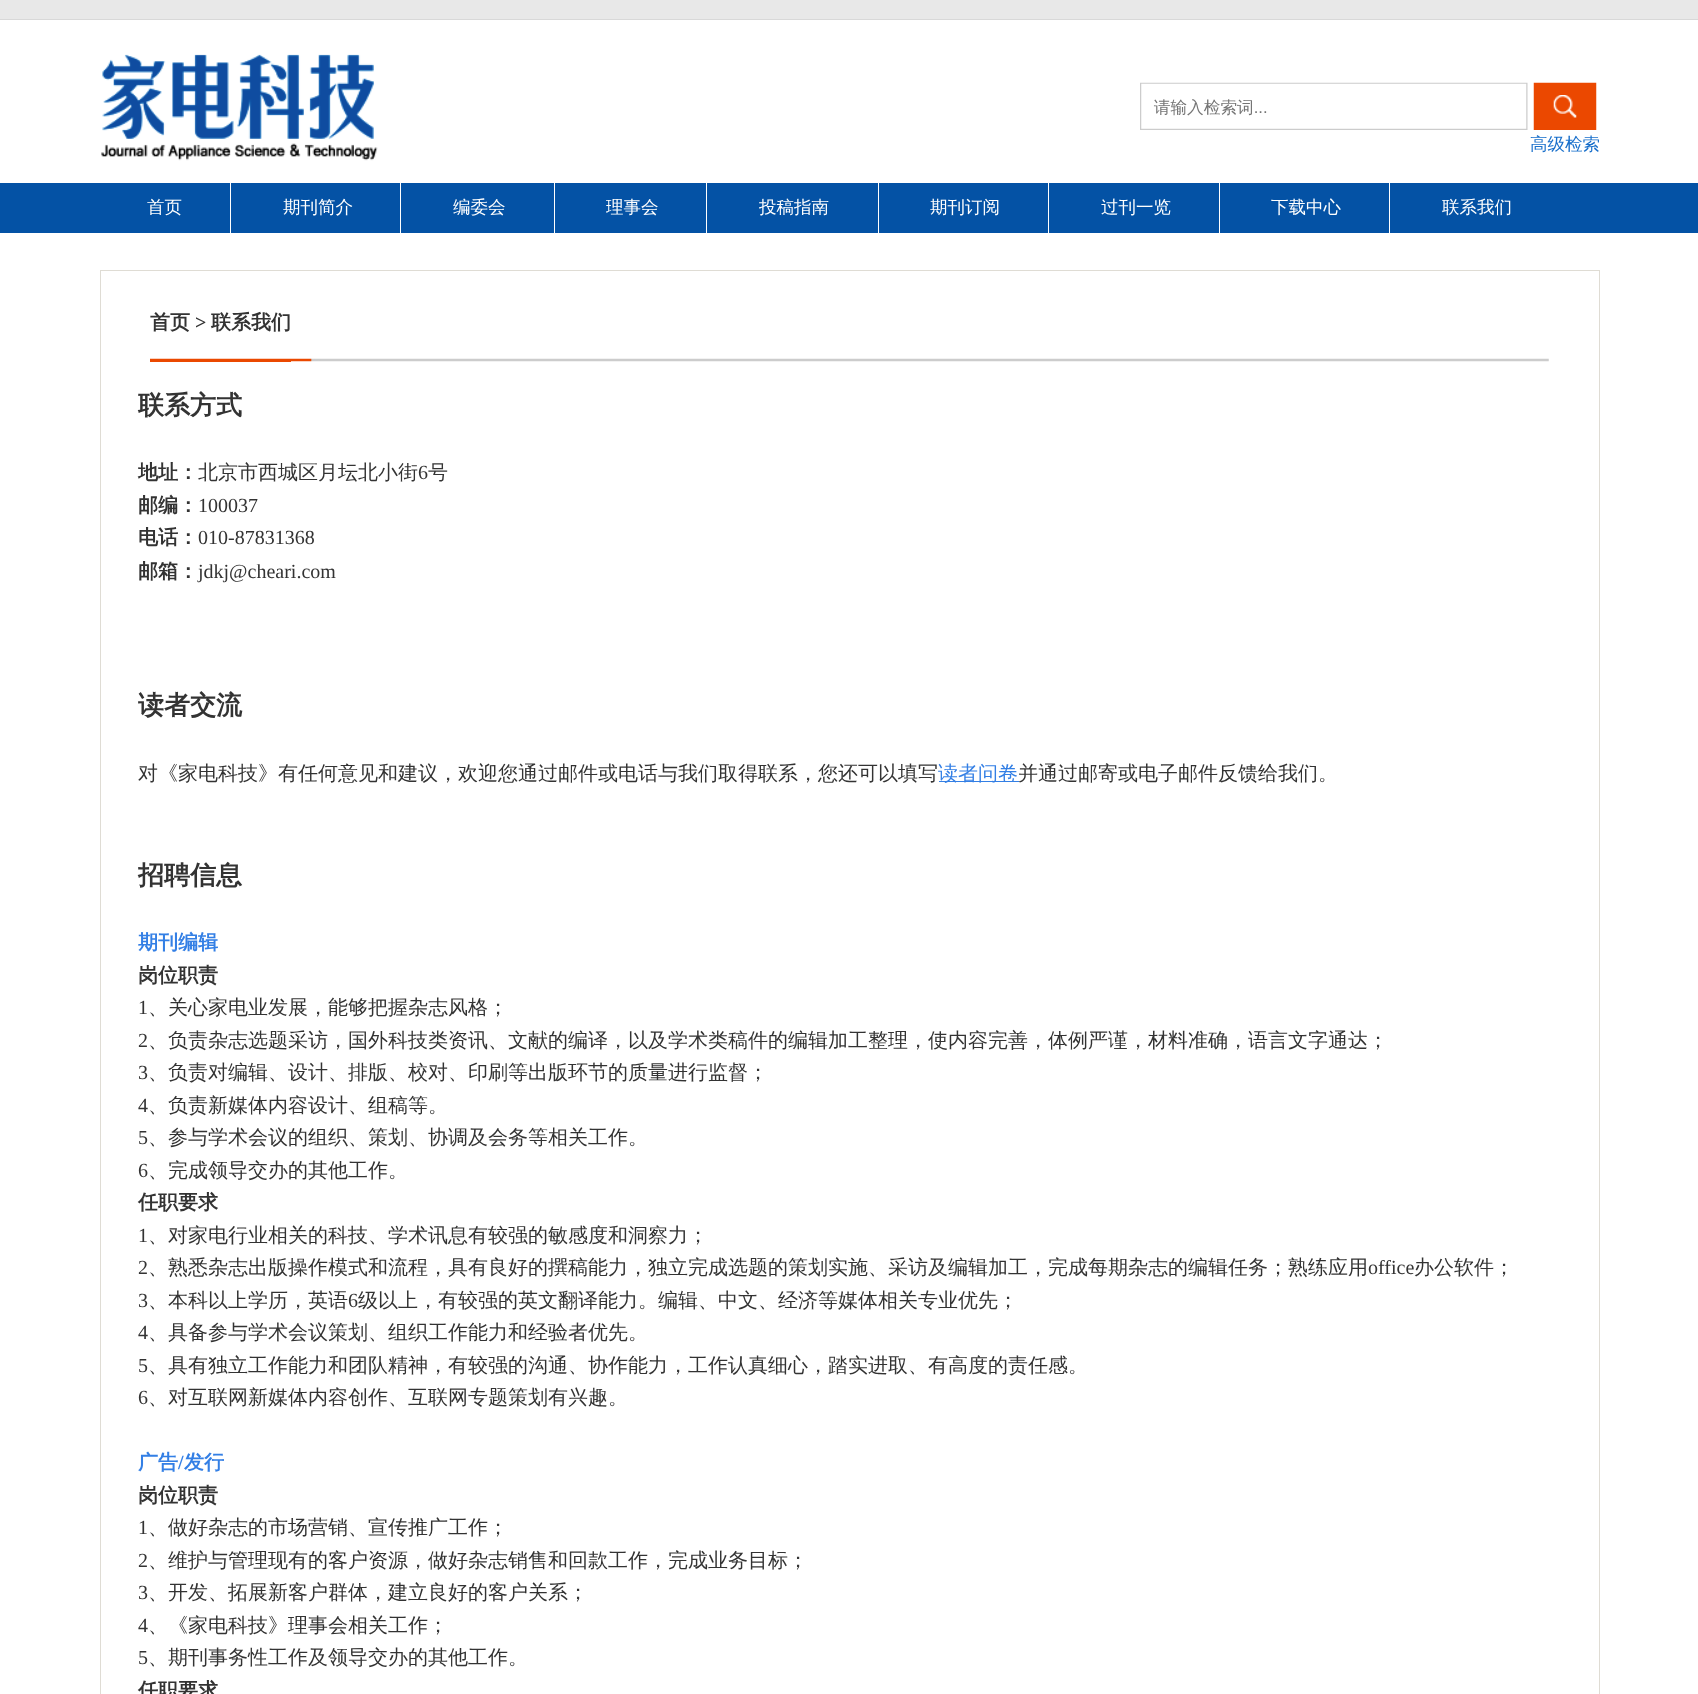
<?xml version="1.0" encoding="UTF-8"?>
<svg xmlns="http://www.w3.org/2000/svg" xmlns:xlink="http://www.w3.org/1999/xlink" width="1698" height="1694">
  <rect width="100%" height="100%" fill="#ffffff" />
  <rect width="1698" height="19" fill="#e8e8e8" />
  <rect y="19" width="1698" height="1" fill="#d8d8d8" />
  <image x="101" y="54" width="277" height="107" xlink:href="image1.png" />
  <image x="1140" y="82" width="459" height="71" xlink:href="image2.png" />
  <rect y="183" width="1698" height="50" fill="#0452a5" />
  <rect x="230" y="183" width="1" height="50" fill="#ffffff" />
  <rect x="400" y="183" width="1" height="50" fill="#ffffff" />
  <rect x="554" y="183" width="1" height="50" fill="#ffffff" />
  <rect x="706" y="183" width="1" height="50" fill="#ffffff" />
  <rect x="878" y="183" width="1" height="50" fill="#ffffff" />
  <rect x="1048" y="183" width="1" height="50" fill="#ffffff" />
  <rect x="1219" y="183" width="1" height="50" fill="#ffffff" />
  <rect x="1389" y="183" width="1" height="50" fill="#ffffff" />
  <rect x="100.5" y="270.5" width="1499" height="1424" fill="none" stroke="#dfdcd4" />
  <image x="150" y="358" width="1399" height="4" xlink:href="image3.png" />
  <rect x="150" y="361" width="141" height="1" fill="#eb4800" />
  <rect x="939" y="781" width="80" height="1" fill="#337fe5" />
  <text x="147" y="213" style="font-family: WenQuanYi Zen Hei; font-size: 17.5px; font-weight: 500; fill: #ffffff">首页</text>
  <text x="283" y="213" style="font-family: WenQuanYi Zen Hei; font-size: 17.5px; font-weight: 500; fill: #ffffff">期刊简介</text>
  <text x="453" y="213" style="font-family: WenQuanYi Zen Hei; font-size: 17.5px; font-weight: 500; fill: #ffffff">编委会</text>
  <text x="606" y="213" style="font-family: WenQuanYi Zen Hei; font-size: 17.5px; font-weight: 500; fill: #ffffff">理事会</text>
  <text x="759" y="213" style="font-family: WenQuanYi Zen Hei; font-size: 17.5px; font-weight: 500; fill: #ffffff">投稿指南</text>
  <text x="930" y="213" style="font-family: WenQuanYi Zen Hei; font-size: 17.5px; font-weight: 500; fill: #ffffff">期刊订阅</text>
  <text x="1101" y="213" style="font-family: WenQuanYi Zen Hei; font-size: 17.5px; font-weight: 500; fill: #ffffff">过刊一览</text>
  <text x="1271" y="213" style="font-family: WenQuanYi Zen Hei; font-size: 17.5px; font-weight: 500; fill: #ffffff">下载中心</text>
  <text x="1442" y="213" style="font-family: WenQuanYi Zen Hei; font-size: 17.5px; font-weight: 500; fill: #ffffff">联系我们</text>
  <text x="150" y="329" style="font-family: WenQuanYi Zen Hei; font-size: 20px; font-weight: bold; fill: #333333">首页</text>
  <text x="195" y="329" style="font-family: Liberation Serif; font-size: 20px; font-weight: bold; fill: #333333">&gt;</text>
  <text x="211" y="329" style="font-family: WenQuanYi Zen Hei; font-size: 20px; font-weight: bold; fill: #333333">联系我们</text>
  <text x="138" y="414" style="font-family: WenQuanYi Zen Hei; font-size: 26px; font-weight: bold; fill: #333333">联系方式</text>
  <text x="138" y="479" style="font-family: WenQuanYi Zen Hei; font-size: 20px; font-weight: bold; fill: #333333">地址：</text>
  <text x="198" y="479" style="font-family: WenQuanYi Zen Hei; font-size: 20px; font-weight: 500; fill: #333333">北京市西城区月坛北小街</text>
  <text x="418" y="479" style="font-family: Liberation Serif; font-size: 20px; fill: #333333">6</text>
  <text x="428" y="479" style="font-family: WenQuanYi Zen Hei; font-size: 20px; font-weight: 500; fill: #333333">号</text>
  <text x="138" y="512" style="font-family: WenQuanYi Zen Hei; font-size: 20px; font-weight: bold; fill: #333333">邮编：</text>
  <text x="198" y="512" style="font-family: Liberation Serif; font-size: 20px; fill: #333333">100037</text>
  <text x="138" y="544" style="font-family: WenQuanYi Zen Hei; font-size: 20px; font-weight: bold; fill: #333333">电话：</text>
  <text x="198" y="544" style="font-family: Liberation Serif; font-size: 20px; fill: #333333">010-87831368</text>
  <text x="138" y="578" style="font-family: WenQuanYi Zen Hei; font-size: 20px; font-weight: bold; fill: #333333">邮箱：</text>
  <text x="198" y="578" style="font-family: Liberation Serif; font-size: 20px; fill: #333333">jdkj@cheari.com</text>
  <text x="138" y="714" style="font-family: WenQuanYi Zen Hei; font-size: 26px; font-weight: bold; fill: #333333">读者交流</text>
  <text x="138" y="780" style="font-family: WenQuanYi Zen Hei; font-size: 20px; font-weight: 500; fill: #333333">对《家电科技》有任何意见和建议，欢迎您通过邮件或电话与我们取得联系，您还可以填写</text>
  <text x="938" y="780" style="font-family: WenQuanYi Zen Hei; font-size: 20px; font-weight: 500; fill: #337fe5">读者问卷</text>
  <text x="1018" y="780" style="font-family: WenQuanYi Zen Hei; font-size: 20px; font-weight: 500; fill: #333333">并通过邮寄或电子邮件反馈给我们。</text>
  <text x="138" y="884" style="font-family: WenQuanYi Zen Hei; font-size: 26px; font-weight: bold; fill: #333333">招聘信息</text>
  <text x="138" y="949" style="font-family: WenQuanYi Zen Hei; font-size: 20px; font-weight: bold; fill: #337fe5">期刊编辑</text>
  <text x="138" y="982" style="font-family: WenQuanYi Zen Hei; font-size: 20px; font-weight: bold; fill: #333333">岗位职责</text>
  <text x="138" y="1014" style="font-family: Liberation Serif; font-size: 20px; fill: #333333">1</text>
  <text x="148" y="1014" style="font-family: WenQuanYi Zen Hei; font-size: 20px; font-weight: 500; fill: #333333">、关心家电业发展，能够把握杂志风格；</text>
  <text x="138" y="1047" style="font-family: Liberation Serif; font-size: 20px; fill: #333333">2</text>
  <text x="148" y="1047" style="font-family: WenQuanYi Zen Hei; font-size: 20px; font-weight: 500; fill: #333333">、负责杂志选题采访，国外科技类资讯、文献的编译，以及学术类稿件的编辑加工整理，使内容完善，体例严谨，材料准确，语言文字通达；</text>
  <text x="138" y="1079" style="font-family: Liberation Serif; font-size: 20px; fill: #333333">3</text>
  <text x="148" y="1079" style="font-family: WenQuanYi Zen Hei; font-size: 20px; font-weight: 500; fill: #333333">、负责对编辑、设计、排版、校对、印刷等出版环节的质量进行监督；</text>
  <text x="138" y="1112" style="font-family: Liberation Serif; font-size: 20px; fill: #333333">4</text>
  <text x="148" y="1112" style="font-family: WenQuanYi Zen Hei; font-size: 20px; font-weight: 500; fill: #333333">、负责新媒体内容设计、组稿等。</text>
  <text x="138" y="1144" style="font-family: Liberation Serif; font-size: 20px; fill: #333333">5</text>
  <text x="148" y="1144" style="font-family: WenQuanYi Zen Hei; font-size: 20px; font-weight: 500; fill: #333333">、参与学术会议的组织、策划、协调及会务等相关工作。</text>
  <text x="138" y="1177" style="font-family: Liberation Serif; font-size: 20px; fill: #333333">6</text>
  <text x="148" y="1177" style="font-family: WenQuanYi Zen Hei; font-size: 20px; font-weight: 500; fill: #333333">、完成领导交办的其他工作。</text>
  <text x="138" y="1209" style="font-family: WenQuanYi Zen Hei; font-size: 20px; font-weight: bold; fill: #333333">任职要求</text>
  <text x="138" y="1242" style="font-family: Liberation Serif; font-size: 20px; fill: #333333">1</text>
  <text x="148" y="1242" style="font-family: WenQuanYi Zen Hei; font-size: 20px; font-weight: 500; fill: #333333">、对家电行业相关的科技、学术讯息有较强的敏感度和洞察力；</text>
  <text x="138" y="1274" style="font-family: Liberation Serif; font-size: 20px; fill: #333333">2</text>
  <text x="148" y="1274" style="font-family: WenQuanYi Zen Hei; font-size: 20px; font-weight: 500; fill: #333333">、熟悉杂志出版操作模式和流程，具有良好的撰稿能力，独立完成选题的策划实施、采访及编辑加工，完成每期杂志的编辑任务；熟练应用</text>
  <text x="1368" y="1274" style="font-family: Liberation Serif; font-size: 20px; fill: #333333">office</text>
  <text x="1414" y="1274" style="font-family: WenQuanYi Zen Hei; font-size: 20px; font-weight: 500; fill: #333333">办公软件；</text>
  <text x="138" y="1307" style="font-family: Liberation Serif; font-size: 20px; fill: #333333">3</text>
  <text x="148" y="1307" style="font-family: WenQuanYi Zen Hei; font-size: 20px; font-weight: 500; fill: #333333">、本科以上学历，英语</text>
  <text x="348" y="1307" style="font-family: Liberation Serif; font-size: 20px; fill: #333333">6</text>
  <text x="358" y="1307" style="font-family: WenQuanYi Zen Hei; font-size: 20px; font-weight: 500; fill: #333333">级以上，有较强的英文翻译能力。编辑、中文、经济等媒体相关专业优先；</text>
  <text x="138" y="1339" style="font-family: Liberation Serif; font-size: 20px; fill: #333333">4</text>
  <text x="148" y="1339" style="font-family: WenQuanYi Zen Hei; font-size: 20px; font-weight: 500; fill: #333333">、具备参与学术会议策划、组织工作能力和经验者优先。</text>
  <text x="138" y="1372" style="font-family: Liberation Serif; font-size: 20px; fill: #333333">5</text>
  <text x="148" y="1372" style="font-family: WenQuanYi Zen Hei; font-size: 20px; font-weight: 500; fill: #333333">、具有独立工作能力和团队精神，有较强的沟通、协作能力，工作认真细心，踏实进取、有高度的责任感。</text>
  <text x="138" y="1404" style="font-family: Liberation Serif; font-size: 20px; fill: #333333">6</text>
  <text x="148" y="1404" style="font-family: WenQuanYi Zen Hei; font-size: 20px; font-weight: 500; fill: #333333">、对互联网新媒体内容创作、互联网专题策划有兴趣。</text>
  <text x="138" y="1469" style="font-family: WenQuanYi Zen Hei; font-size: 20px; font-weight: bold; fill: #337fe5">广告</text>
  <text x="178" y="1469" style="font-family: Liberation Serif; font-size: 20px; font-weight: bold; fill: #337fe5">/</text>
  <text x="184" y="1469" style="font-family: WenQuanYi Zen Hei; font-size: 20px; font-weight: bold; fill: #337fe5">发行</text>
  <text x="138" y="1502" style="font-family: WenQuanYi Zen Hei; font-size: 20px; font-weight: bold; fill: #333333">岗位职责</text>
  <text x="138" y="1534" style="font-family: Liberation Serif; font-size: 20px; fill: #333333">1</text>
  <text x="148" y="1534" style="font-family: WenQuanYi Zen Hei; font-size: 20px; font-weight: 500; fill: #333333">、做好杂志的市场营销、宣传推广工作；</text>
  <text x="138" y="1567" style="font-family: Liberation Serif; font-size: 20px; fill: #333333">2</text>
  <text x="148" y="1567" style="font-family: WenQuanYi Zen Hei; font-size: 20px; font-weight: 500; fill: #333333">、维护与管理现有的客户资源，做好杂志销售和回款工作，完成业务目标；</text>
  <text x="138" y="1599" style="font-family: Liberation Serif; font-size: 20px; fill: #333333">3</text>
  <text x="148" y="1599" style="font-family: WenQuanYi Zen Hei; font-size: 20px; font-weight: 500; fill: #333333">、开发、拓展新客户群体，建立良好的客户关系；</text>
  <text x="138" y="1632" style="font-family: Liberation Serif; font-size: 20px; fill: #333333">4</text>
  <text x="148" y="1632" style="font-family: WenQuanYi Zen Hei; font-size: 20px; font-weight: 500; fill: #333333">、《家电科技》理事会相关工作；</text>
  <text x="138" y="1664" style="font-family: Liberation Serif; font-size: 20px; fill: #333333">5</text>
  <text x="148" y="1664" style="font-family: WenQuanYi Zen Hei; font-size: 20px; font-weight: 500; fill: #333333">、期刊事务性工作及领导交办的其他工作。</text>
  <text x="138" y="1697" style="font-family: WenQuanYi Zen Hei; font-size: 20px; font-weight: bold; fill: #333333">任职要求</text>
</svg>
